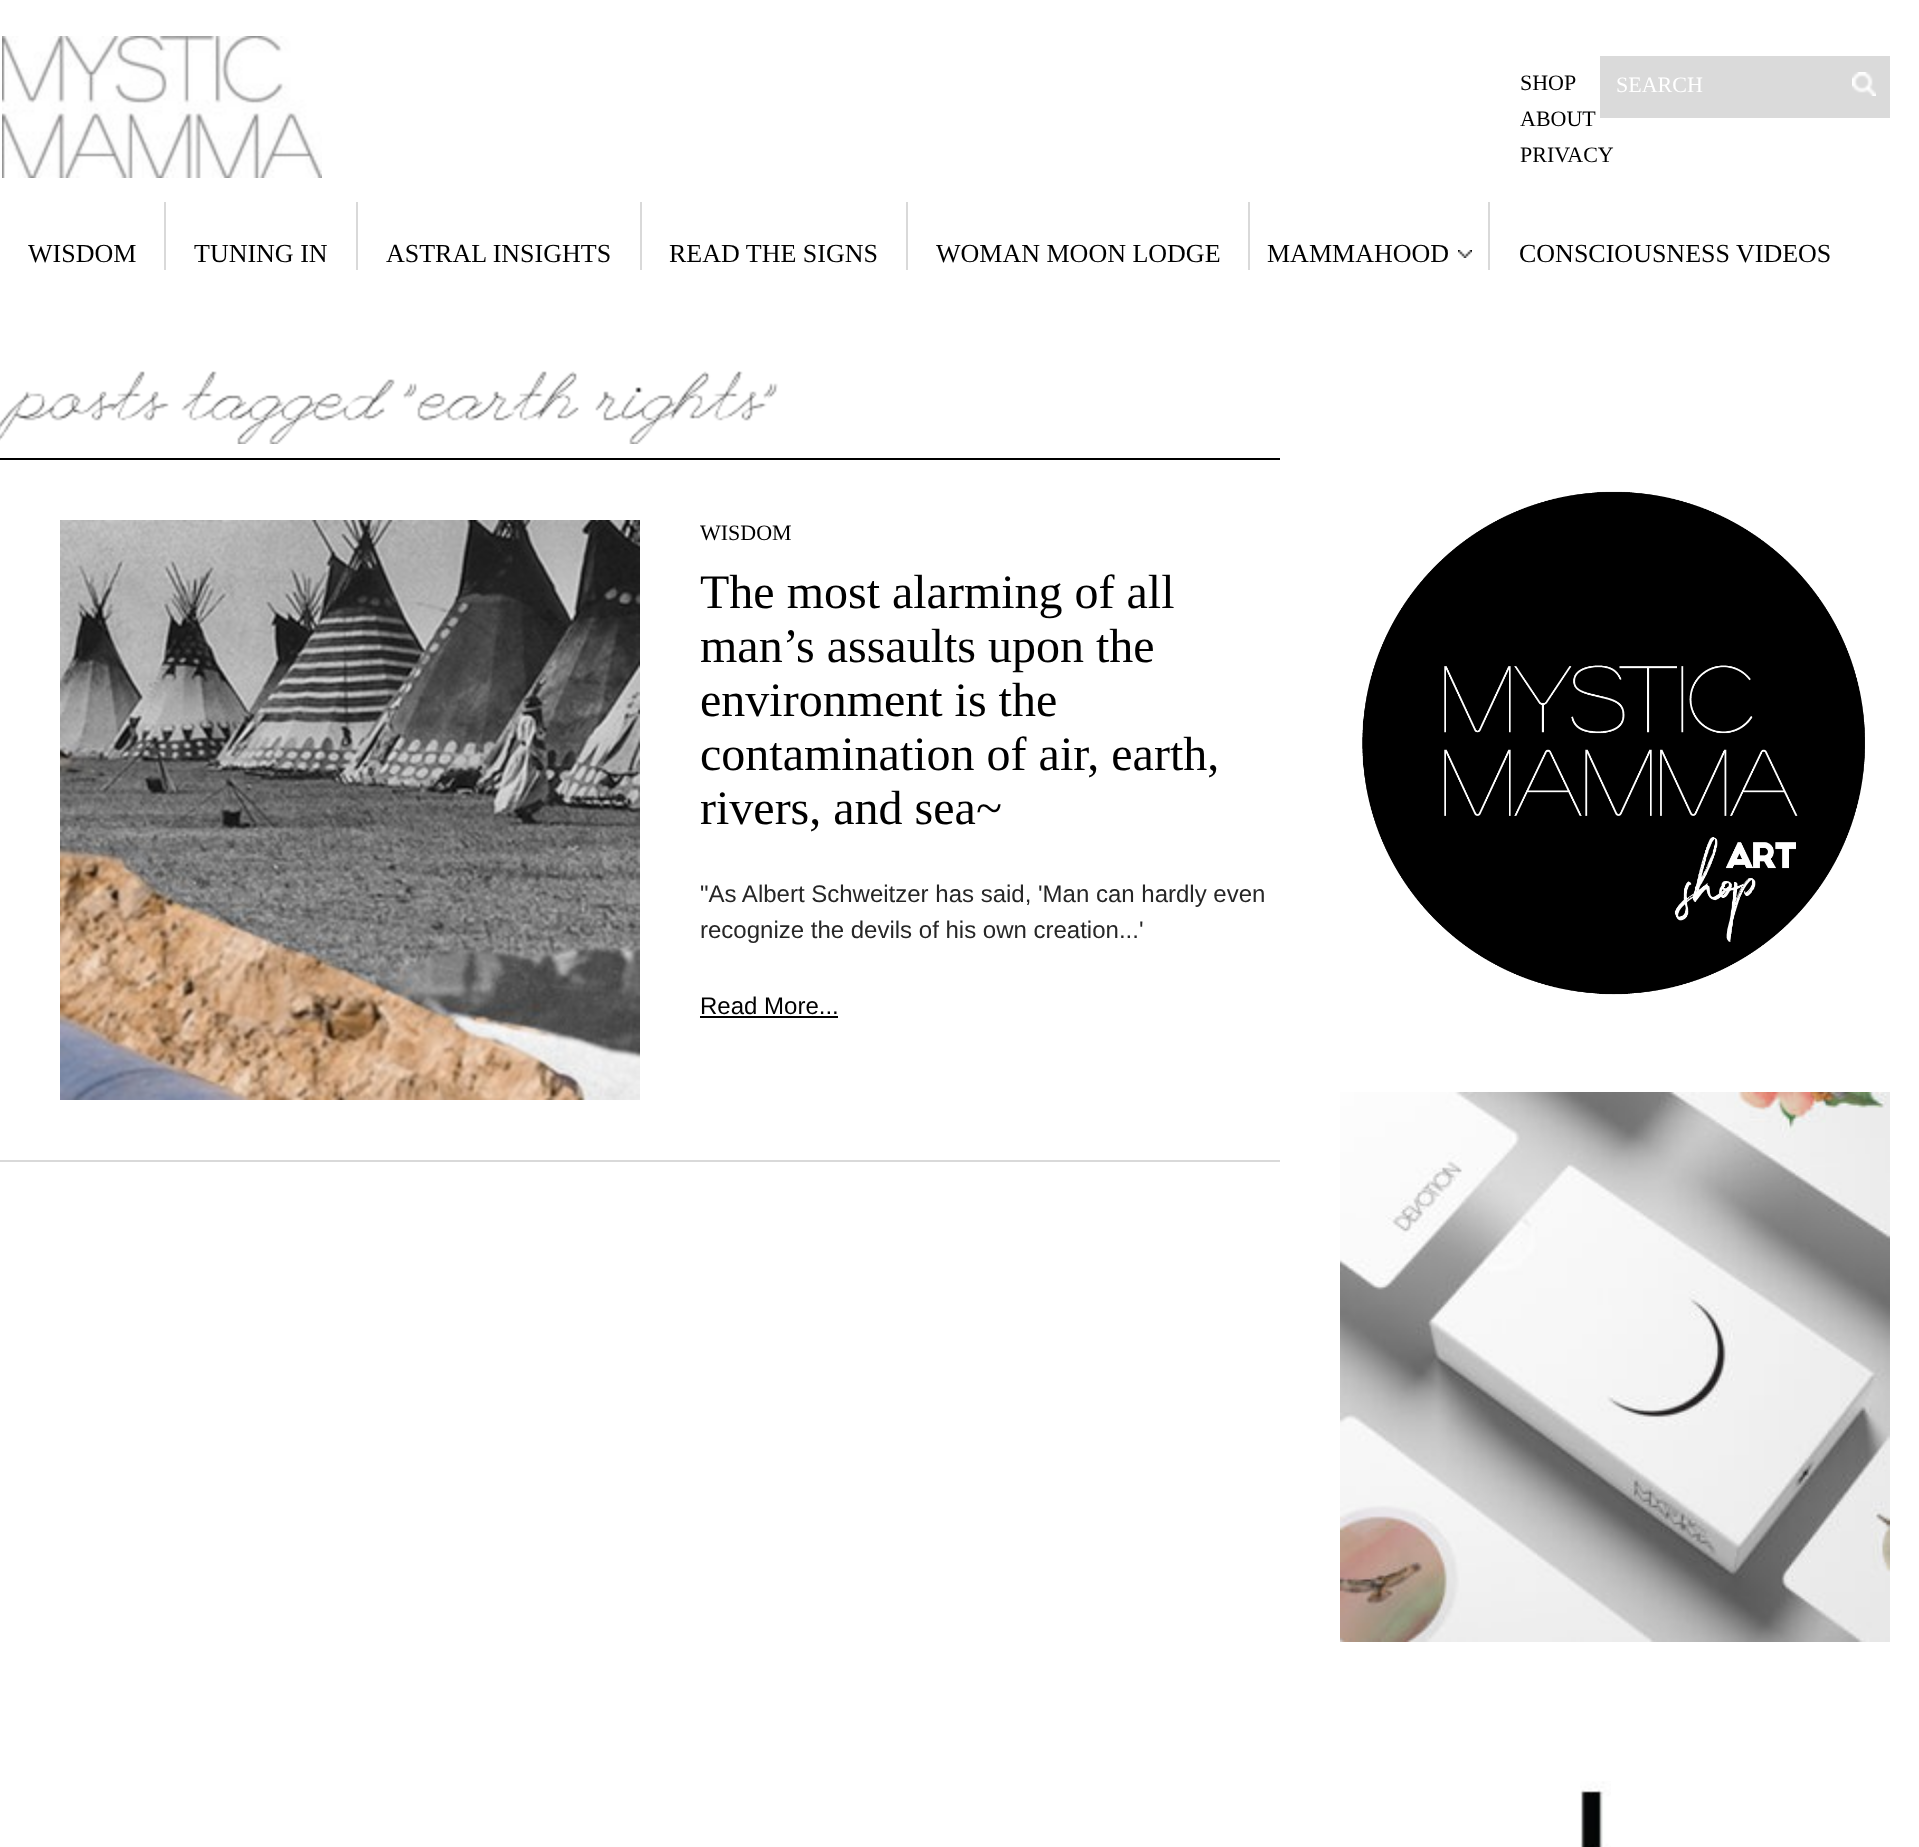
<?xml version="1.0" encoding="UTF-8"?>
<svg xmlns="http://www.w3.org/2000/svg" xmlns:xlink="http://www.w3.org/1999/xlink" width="1919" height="1847">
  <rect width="100%" height="100%" fill="#ffffff" />
  <image x="2" y="36" width="320" height="142" xlink:href="image1.png" />
  <rect x="1600" y="56" width="290" height="62" fill="#dadada" />
  <image x="1852" y="72" width="24" height="24" xlink:href="image2.png" />
  <rect x="164" y="202" width="2" height="68" fill="#d9d9d9" />
  <rect x="356" y="202" width="2" height="68" fill="#d9d9d9" />
  <rect x="640" y="202" width="2" height="68" fill="#d9d9d9" />
  <rect x="906" y="202" width="2" height="68" fill="#d9d9d9" />
  <rect x="1248" y="202" width="2" height="68" fill="#d9d9d9" />
  <rect x="1488" y="202" width="2" height="68" fill="#d9d9d9" />
  <image x="1458" y="250" width="14" height="8" xlink:href="image3.png" />
  <rect y="458" width="1280" height="2" fill="#000000" />
  <image x="0" y="371" width="169" height="70" xlink:href="image4.png" />
  <image x="181" y="371" width="214" height="73" xlink:href="image5.png" />
  <image x="403" y="371" width="176" height="50" xlink:href="image6.png" />
  <image x="595" y="371" width="183" height="73" xlink:href="image7.png" />
  <rect y="1160" width="1280" height="2" fill="#d9d9d9" />
  <image x="60" y="520" width="580" height="580" xlink:href="image8.png" />
  <rect x="700" y="1016" width="138" height="2" fill="#000000" />
  <image x="1362" y="491" width="503" height="504" xlink:href="image9.png" />
  <image x="1340" y="1092" width="550" height="550" xlink:href="image10.png" />
  <image x="1580" y="1781" width="31" height="66" xlink:href="image11.png" />
  <text x="1520" y="90" style="font-family: Liberation Serif; font-size: 22px; fill: #000000">SHOP</text>
  <text x="1520" y="126" style="font-family: Liberation Serif; font-size: 22px; fill: #000000">ABOUT</text>
  <text x="1520" y="162" style="font-family: Liberation Serif; font-size: 22px; fill: #000000">PRIVACY</text>
  <text x="1616" y="92" style="font-family: Liberation Serif; font-size: 22px; fill: #ffffff">SEARCH</text>
  <text x="28" y="262" style="font-family: Liberation Serif; font-size: 26px; fill: #000000">WISDOM</text>
  <text x="194" y="262" style="font-family: Liberation Serif; font-size: 26px; fill: #000000">TUNING IN</text>
  <text x="386" y="262" style="font-family: Liberation Serif; font-size: 26px; fill: #000000">ASTRAL INSIGHTS</text>
  <text x="669" y="262" style="font-family: Liberation Serif; font-size: 26px; fill: #000000">READ THE SIGNS</text>
  <text x="936" y="262" style="font-family: Liberation Serif; font-size: 26px; fill: #000000">WOMAN MOON LODGE</text>
  <text x="1267" y="262" style="font-family: Liberation Serif; font-size: 26px; fill: #000000">MAMMAHOOD</text>
  <text x="1519" y="262" style="font-family: Liberation Serif; font-size: 26px; fill: #000000">CONSCIOUSNESS VIDEOS</text>
  <text x="700" y="540" style="font-family: Liberation Serif; font-size: 22px; fill: #000000">WISDOM</text>
  <text x="700" y="608" style="font-family: Liberation Serif; font-size: 48px; fill: #000000">The most alarming of all</text>
  <text x="700" y="662" style="font-family: Liberation Serif; font-size: 48px; fill: #000000">man’s assaults upon the</text>
  <text x="700" y="716" style="font-family: Liberation Serif; font-size: 48px; fill: #000000">environment is the</text>
  <text x="700" y="770" style="font-family: Liberation Serif; font-size: 48px; fill: #000000">contamination of air, earth,</text>
  <text x="700" y="824" style="font-family: Liberation Serif; font-size: 48px; fill: #000000">rivers, and sea~</text>
  <text x="700" y="902" style="font-family: Liberation Sans; font-size: 24px; fill: #262626">"As Albert Schweitzer has said, 'Man can hardly even</text>
  <text x="700" y="938" style="font-family: Liberation Sans; font-size: 24px; fill: #262626">recognize the devils of his own creation...'</text>
  <text x="700" y="1014" style="font-family: Liberation Sans; font-size: 24px; fill: #000000">Read More...</text>
</svg>
